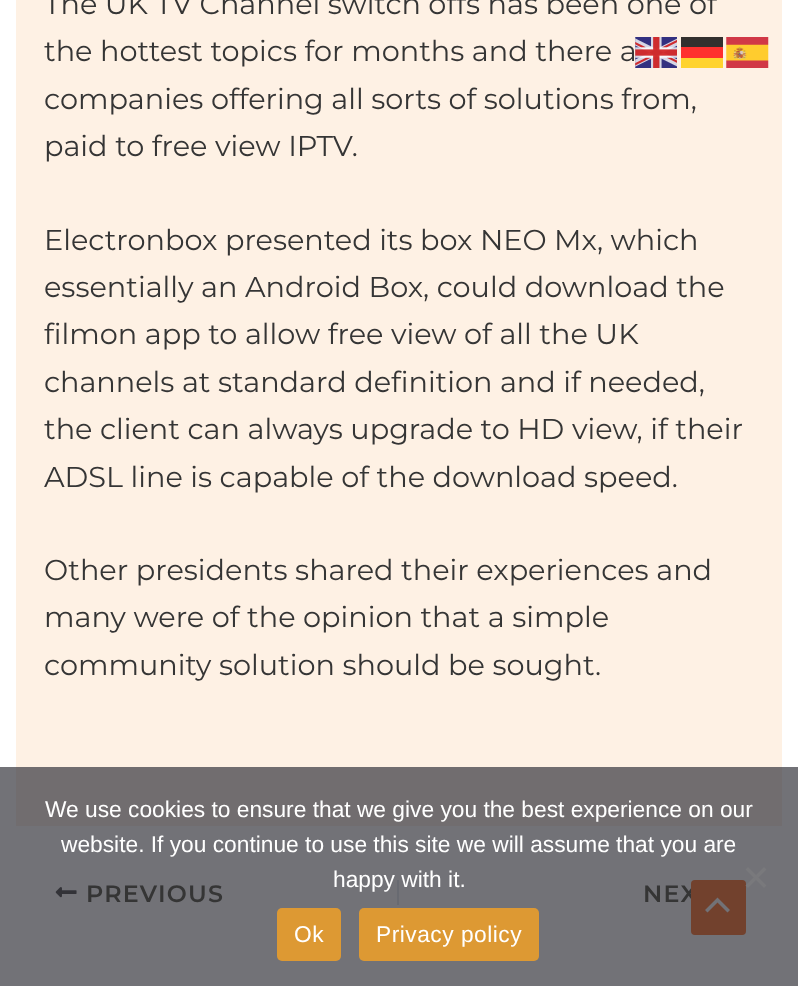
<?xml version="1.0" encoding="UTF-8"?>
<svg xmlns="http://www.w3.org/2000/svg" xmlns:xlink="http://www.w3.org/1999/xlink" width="798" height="986">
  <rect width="100%" height="100%" fill="#ffffff" />
  <rect y="767" width="798" height="219" fill="#727277" />
  <rect x="16" width="766" height="767" fill="#fef1e4" />
  <rect x="16" y="767" width="766" height="59" fill="#716d6f" />
  <image x="55" y="887" width="22" height="11" xlink:href="image1.png" />
  <rect x="397" y="880" width="2" height="25" fill="#686a71" />
  <image x="635" y="37" width="42" height="31" xlink:href="image2.png" />
  <rect x="681" y="37" width="42" height="10" fill="#33302e" />
  <image x="726" y="37" width="43" height="31" xlink:href="image3.png" />
  <rect x="681" y="47" width="42" height="11" fill="#ff302e" />
  <rect x="681" y="58" width="42" height="10" fill="#ffd32e" />
  <rect x="277" y="908" width="64" height="53" rx="5" fill="#dd9933" />
  <rect x="359" y="908" width="180" height="53" rx="5" fill="#dd9933" />
  <text x="44" y="14" style="font-family: Montserrat; font-size: 28.75px; fill: #353535">The UK TV Channel switch offs has been one of</text>
  <text x="44" y="61" style="font-family: Montserrat; font-size: 28.75px; fill: #353535">the hottest topics for months and there a</text>
  <text x="44" y="109" style="font-family: Montserrat; font-size: 28.75px; fill: #353535">companies offering all sorts of solutions from,</text>
  <text x="44" y="156" style="font-family: Montserrat; font-size: 28.75px; fill: #353535">paid to free view IPTV.</text>
  <text x="44" y="250" style="font-family: Montserrat; font-size: 28.75px; fill: #353535">Electronbox presented its box NEO Mx, which</text>
  <text x="44" y="297" style="font-family: Montserrat; font-size: 28.75px; fill: #353535">essentially an Android Box, could download the</text>
  <text x="44" y="344" style="font-family: Montserrat; font-size: 28.75px; fill: #353535">filmon app to allow free view of all the UK</text>
  <text x="44" y="392" style="font-family: Montserrat; font-size: 28.75px; fill: #353535">channels at standard definition and if needed,</text>
  <text x="44" y="439" style="font-family: Montserrat; font-size: 28.75px; fill: #353535">the client can always upgrade to HD view, if their</text>
  <text x="44" y="487" style="font-family: Montserrat; font-size: 28.75px; fill: #353535">ADSL line is capable of the download speed.</text>
  <text x="44" y="580" style="font-family: Montserrat; font-size: 28.75px; fill: #353535">Other presidents shared their experiences and</text>
  <text x="44" y="627" style="font-family: Montserrat; font-size: 28.75px; fill: #353535">many were of the opinion that a simple</text>
  <text x="44" y="675" style="font-family: Montserrat; font-size: 28.75px; fill: #353535">community solution should be sought.</text>
  <text x="86" y="902" style="font-family: Montserrat; font-size: 23.75px; font-weight: 600; letter-spacing: 1.25px; fill: #353535">PREVIOUS</text>
  <text x="643" y="902" style="font-family: Montserrat; font-size: 23.75px; font-weight: 600; letter-spacing: 1.25px; fill: #353535">NEX</text>
  <text x="45" y="817" style="font-family: Liberation Sans; font-size: 22.75px; fill: #ffffff">We use cookies to ensure that we give you the best experience on our</text>
  <text x="61" y="852" style="font-family: Liberation Sans; font-size: 22.75px; fill: #ffffff">website. If you continue to use this site we will assume that you are</text>
  <text x="333" y="887" style="font-family: Liberation Sans; font-size: 22.75px; fill: #ffffff">happy with it.</text>
  <text x="294" y="942" style="font-family: Liberation Sans; font-size: 22.75px; letter-spacing: 0.5px; fill: #ffffff">Ok</text>
  <text x="376" y="942" style="font-family: Liberation Sans; font-size: 22.75px; letter-spacing: 0.5px; fill: #ffffff">Privacy policy</text>
  <rect x="691" y="880" width="55" height="55" rx="4" fill="#72412d" />
  <path d="M 764 867 l 2.5 2.5 l -18.5 18.5 l -2.5 -2.5 z" fill="#79797c" />
  <path d="M 745.5 869.5 l 2.5 -2.5 l 18.5 18.5 l -2.5 2.5 z" fill="#79797c" />
  <path d="M 730 910 l -12.5 -12.5 l -12.5 12.5 l 2.5 2.5 l 10 -10 l 10 10 z" fill="#727277" />
</svg>
